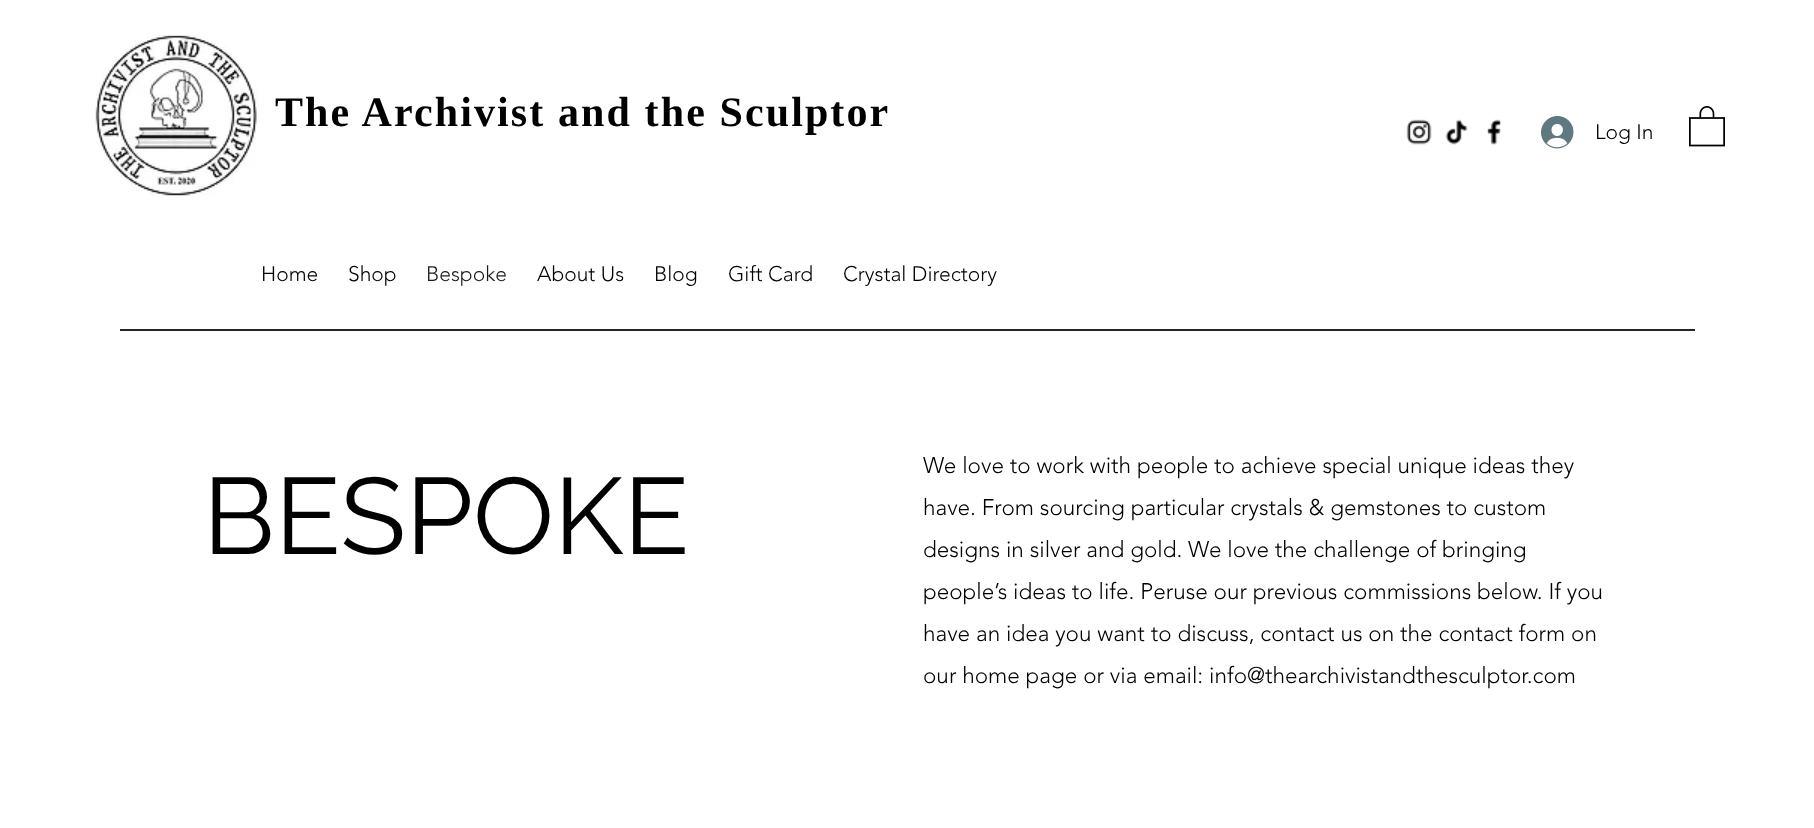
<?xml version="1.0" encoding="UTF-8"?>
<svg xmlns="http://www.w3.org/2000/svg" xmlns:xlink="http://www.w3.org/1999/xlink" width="1814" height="828">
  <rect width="100%" height="100%" fill="#ffffff" />
  <image x="95" y="34" width="163" height="162" xlink:href="image1.png" />
  <image x="1406" y="119" width="26" height="26" xlink:href="image2.png" />
  <image x="1445" y="119" width="23" height="26" xlink:href="image3.png" />
  <image x="1487" y="119" width="14" height="26" xlink:href="image4.png" />
  <image x="1541" y="116" width="33" height="33" xlink:href="image5.png" />
  <image x="1689" y="106" width="36" height="41" xlink:href="image6.png" />
  <rect x="120" y="329" width="1575" height="2" fill="#262626" />
  <text x="275" y="126" style="font-family: Liberation Serif; font-size: 42px; font-weight: bold; letter-spacing: 2.1px; fill: #000000">The Archivist and the Sculptor</text>
  <text x="1595" y="139" style="font-family: 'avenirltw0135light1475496'; font-size: 21px; font-weight: 300; fill: #000000">Log In</text>
  <text x="261" y="281" style="font-family: 'avenirltw0135light1475496'; font-size: 21px; font-weight: 300; fill: #000000">Home</text>
  <text x="348" y="281" style="font-family: 'avenirltw0135light1475496'; font-size: 21px; font-weight: 300; fill: #000000">Shop</text>
  <text x="426" y="281" style="font-family: 'avenirltw0135light1475496'; font-size: 21px; font-weight: 300; fill: #191919">Bespoke</text>
  <text x="537" y="281" style="font-family: 'avenirltw0135light1475496'; font-size: 21px; font-weight: 300; fill: #000000">About Us</text>
  <text x="654" y="281" style="font-family: 'avenirltw0135light1475496'; font-size: 21px; font-weight: 300; fill: #000000">Blog</text>
  <text x="728" y="281" style="font-family: 'avenirltw0135light1475496'; font-size: 21px; font-weight: 300; fill: #000000">Gift Card</text>
  <text x="843" y="281" style="font-family: 'avenirltw0135light1475496'; font-size: 21px; font-weight: 300; fill: #000000">Crystal Directory</text>
  <text x="203" y="554" style="font-family: Raleway; font-size: 108px; fill: #000000">BESPOKE</text>
  <text x="923" y="473" style="font-family: 'avenirltw0135light1475496'; font-size: 22.5px; font-weight: 300; fill: #000000">We love to work with people to achieve special unique ideas they</text>
  <text x="923" y="515" style="font-family: 'avenirltw0135light1475496'; font-size: 22.5px; font-weight: 300; fill: #000000">have. From sourcing particular crystals &amp; gemstones to custom</text>
  <text x="923" y="557" style="font-family: 'avenirltw0135light1475496'; font-size: 22.5px; font-weight: 300; fill: #000000">designs in silver and gold. We love the challenge of bringing</text>
  <text x="923" y="599" style="font-family: 'avenirltw0135light1475496'; font-size: 22.5px; font-weight: 300; fill: #000000">people’s ideas to life. Peruse our previous commissions below. If you</text>
  <text x="923" y="641" style="font-family: 'avenirltw0135light1475496'; font-size: 22.5px; font-weight: 300; fill: #000000">have an idea you want to discuss, contact us on the contact form on</text>
  <text x="923" y="683" style="font-family: 'avenirltw0135light1475496'; font-size: 22.5px; font-weight: 300; fill: #000000">our home page or via email: info@thearchivistandthesculptor.com</text>
</svg>
